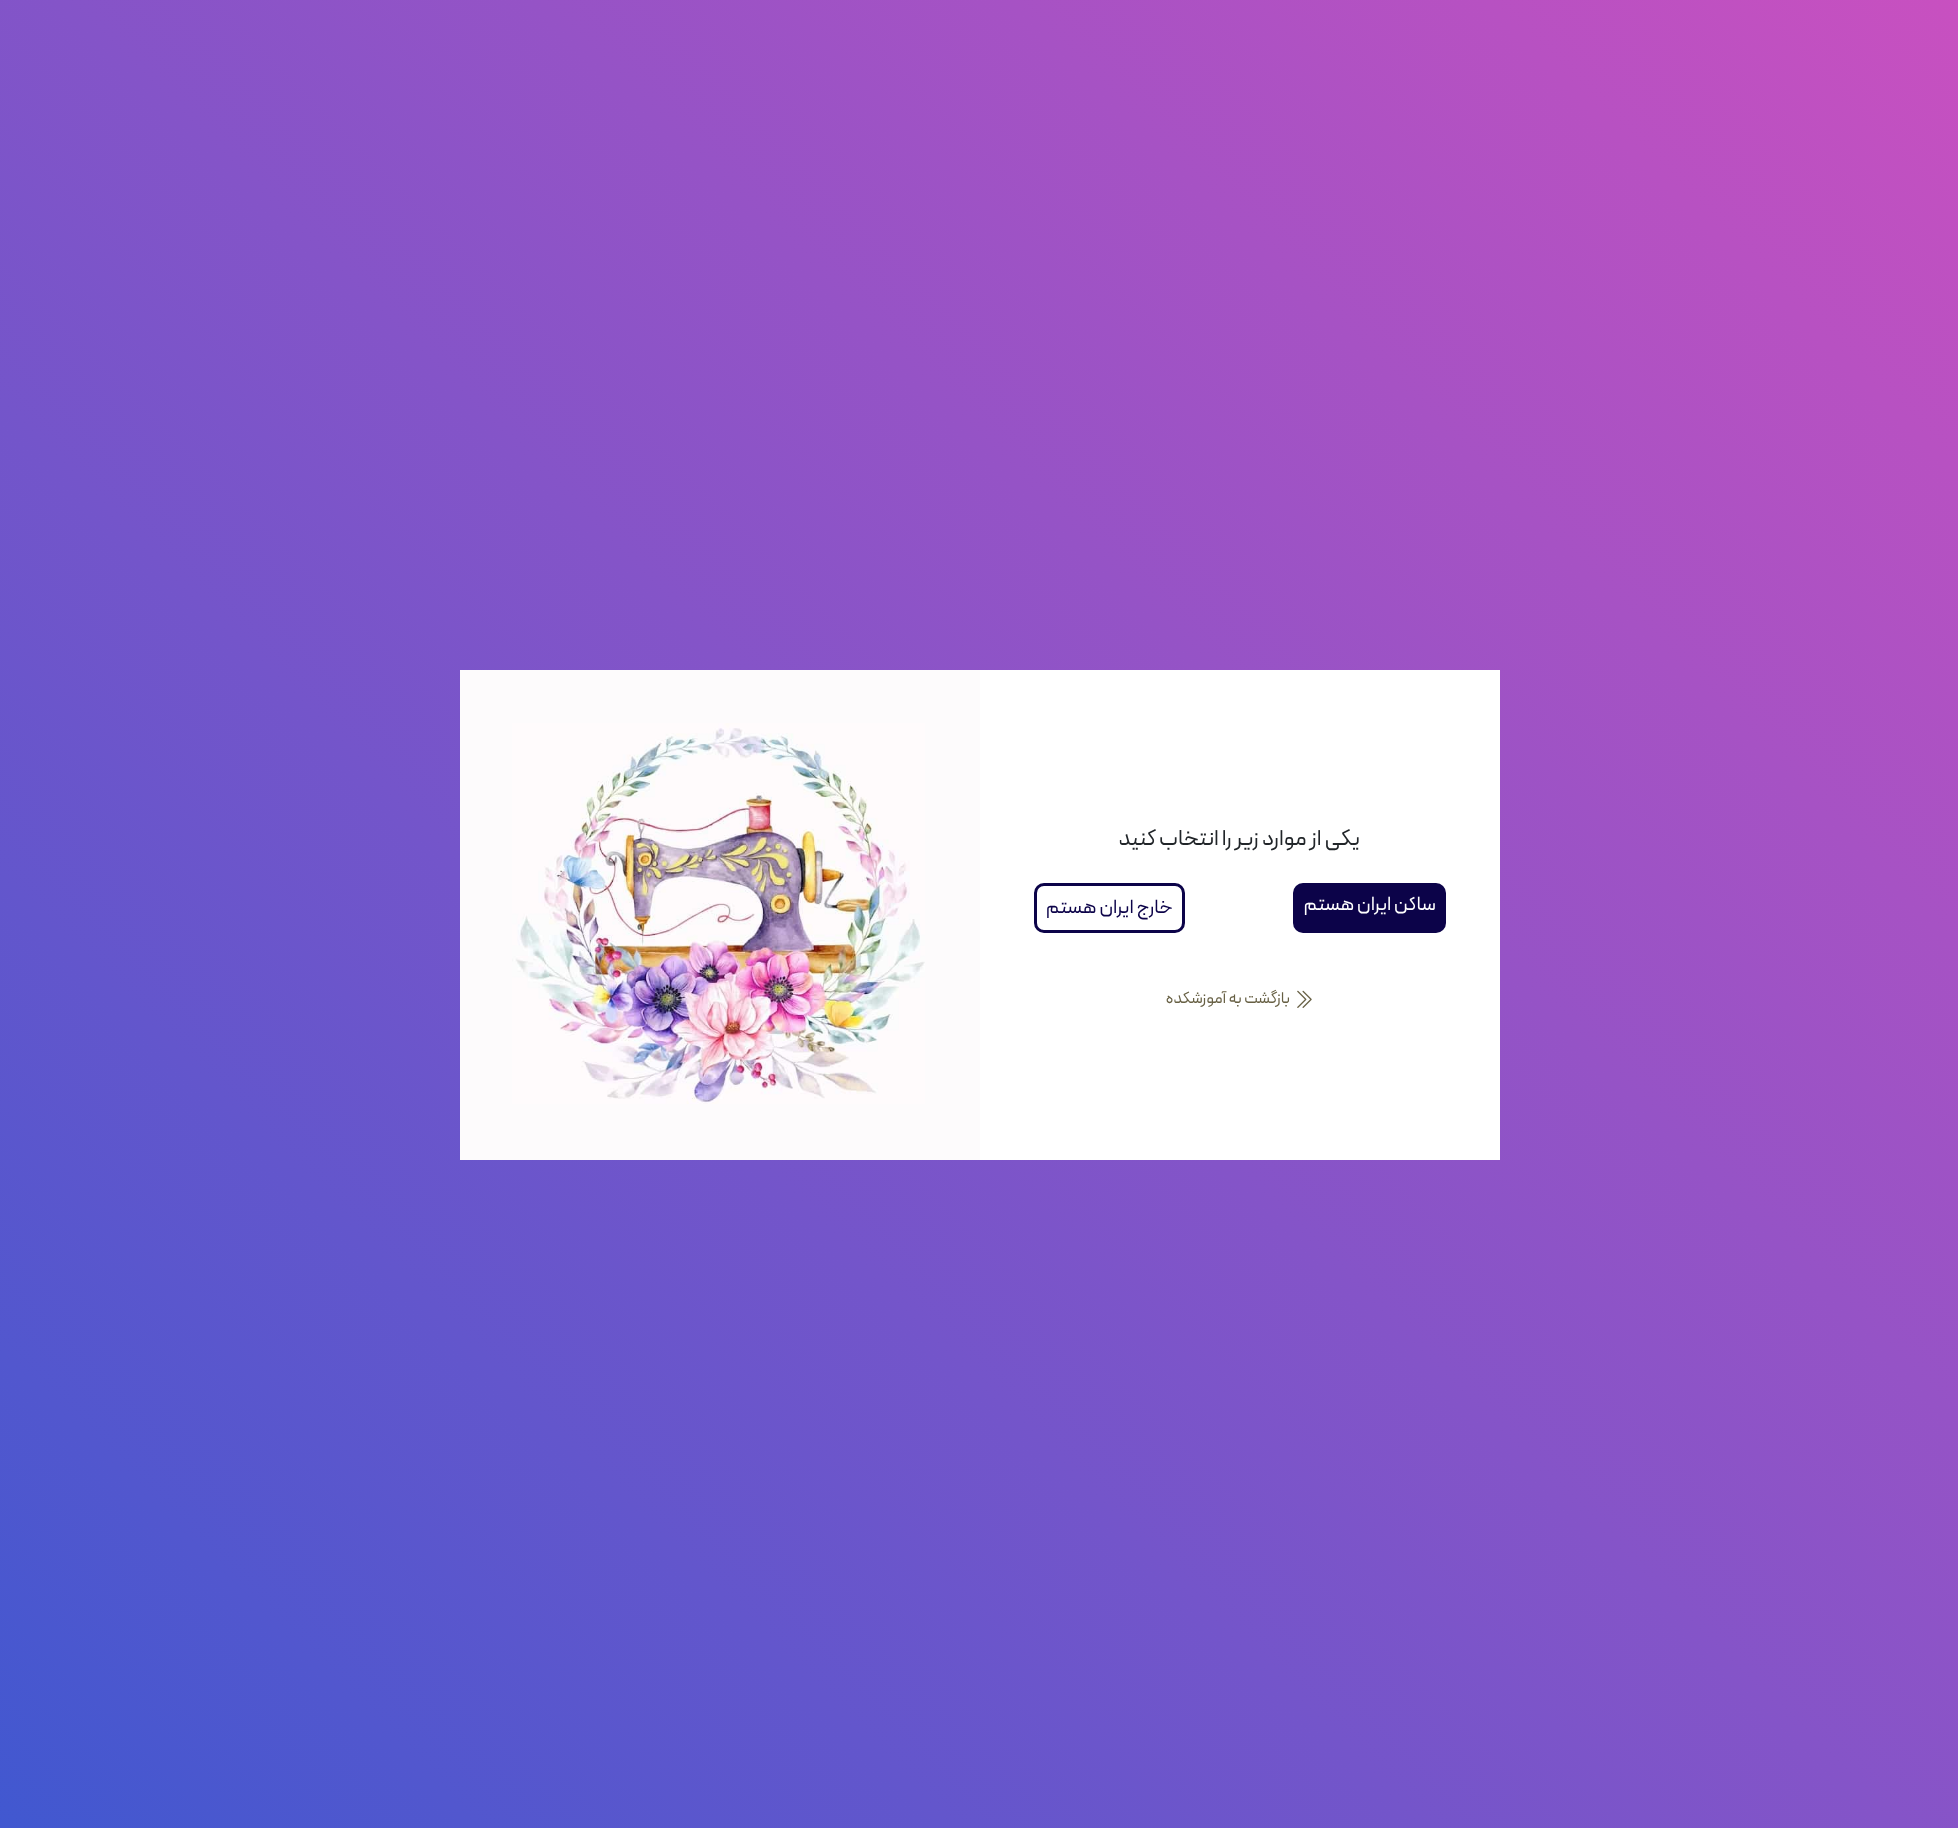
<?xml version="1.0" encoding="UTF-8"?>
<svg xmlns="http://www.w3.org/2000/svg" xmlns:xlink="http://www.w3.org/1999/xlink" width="1958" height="1828">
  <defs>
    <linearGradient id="g1" gradientUnits="userSpaceOnUse" x1="1926" y1="-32" x2="33" y2="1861"><stop offset="0" stop-color="#c850c0" /><stop offset="1" stop-color="#4158d0" /></linearGradient>
  </defs>
  <rect width="100%" height="100%" fill="#ffffff" />
  <rect width="1958" height="1828" fill="url(#g1)" />
  <rect x="980" y="670" width="520" height="490" fill="#ffffff" />
  <rect x="1293" y="883" width="153" height="50" rx="10" fill="#0c0349" />
  <rect x="1035.5" y="884.5" width="148" height="47" rx="8.5" fill="none" stroke="#0c0349" stroke-width="3" />
  <image x="1297" y="990" width="15" height="18" xlink:href="image1.png" />
  <rect x="460" y="670" width="520" height="490" fill="#fdfbfc" />
  <image x="512" y="723" width="413" height="381" xlink:href="image2.png" />
  <text x="1360" y="845" style="font-family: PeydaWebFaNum; font-size: 22.5px; direction: rtl; fill: #212529">یکی از موارد زیر را انتخاب کنید</text>
  <text x="1436" y="910" style="font-family: PeydaWebFaNum; font-size: 20px; direction: rtl; fill: #ffffff">ساکن ایران هستم</text>
  <text x="1173" y="913" style="font-family: PeydaWebFaNum; font-size: 20px; direction: rtl; fill: #0c0349">خارج ایران هستم</text>
  <text x="1290" y="1003" style="font-family: PeydaWebFaNum; font-size: 16.25px; direction: rtl; fill: #676044">بازگشت به آموزشکده</text>
</svg>
